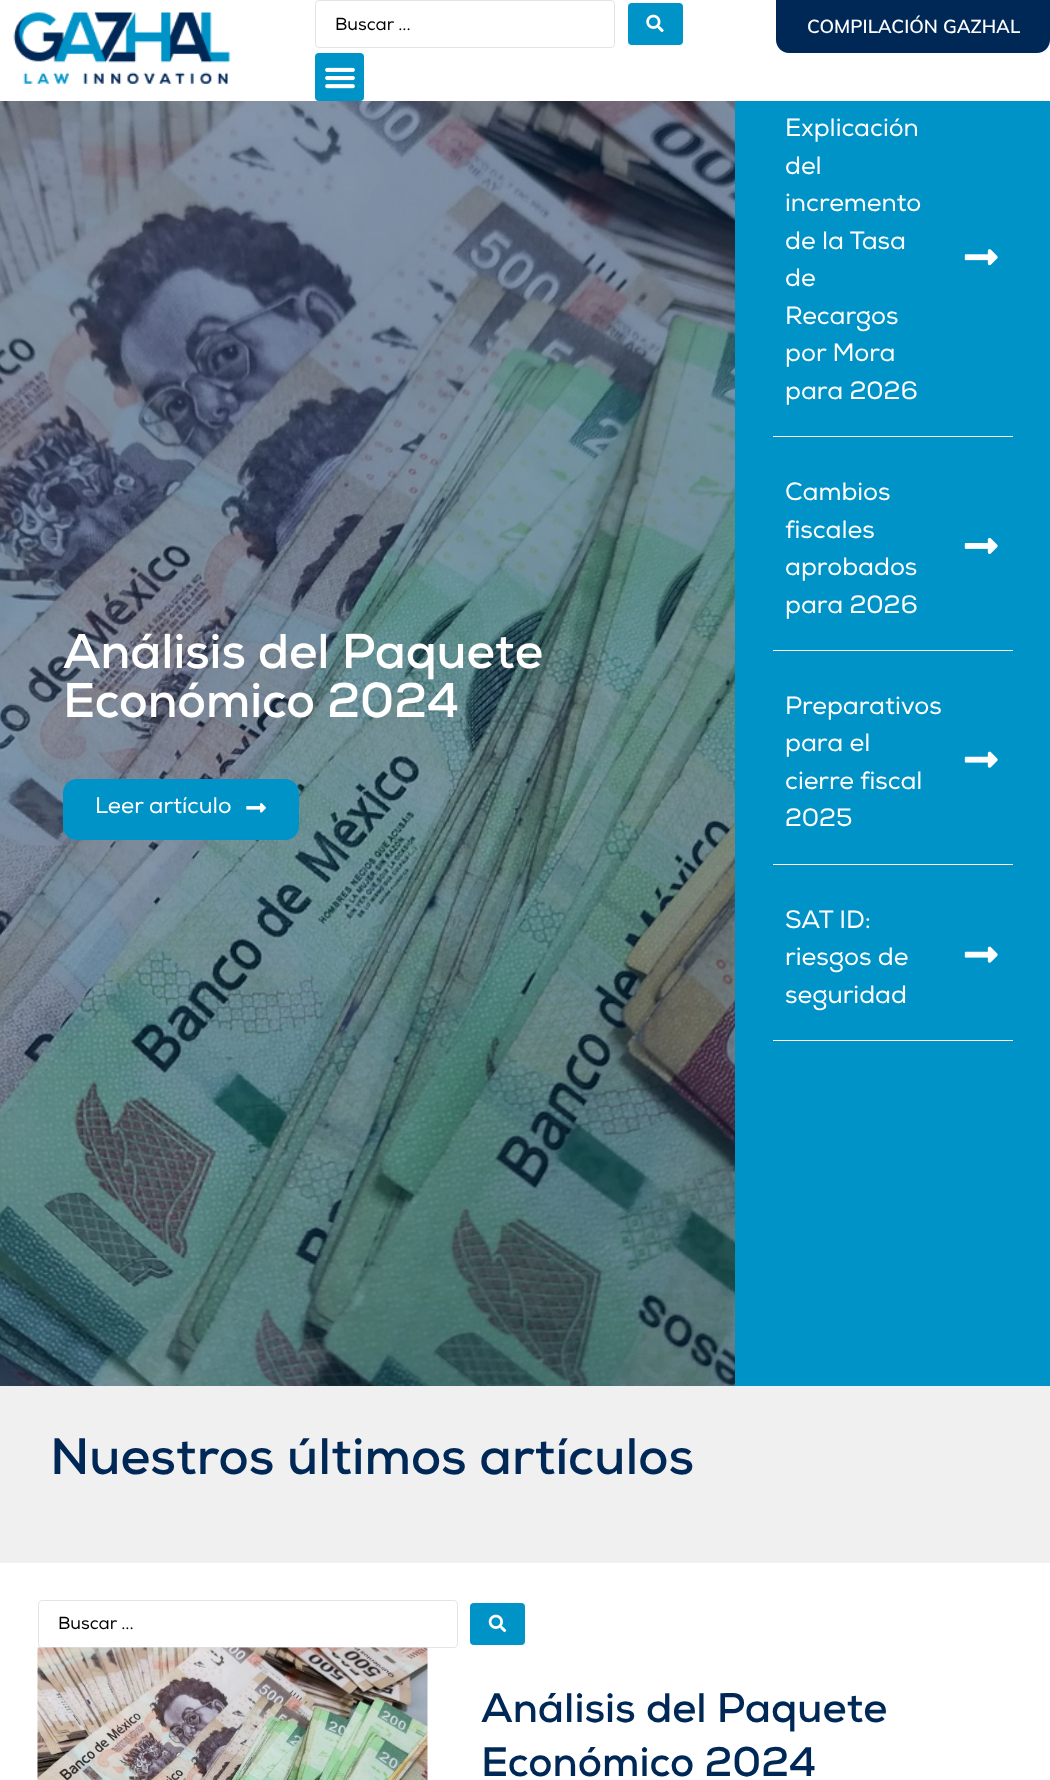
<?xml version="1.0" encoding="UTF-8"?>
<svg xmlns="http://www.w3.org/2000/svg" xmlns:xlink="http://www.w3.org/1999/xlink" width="1050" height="1780">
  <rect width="100%" height="100%" fill="#ffffff" />
  <image x="13" y="12" width="218" height="72" xlink:href="image1.png" />
  <rect x="315.5" y="0.5" width="299" height="47" rx="3.5" fill="none" stroke="#e1e5eb" />
  <rect x="628" y="3" width="55" height="42" rx="4" fill="#0093c8" />
  <image x="646" y="14" width="18" height="19" xlink:href="image2.png" />
  <path d="M 776 0 h 274 v 40 c 0 7 -6 13 -13 13 h -248 c -7 0 -13 -6 -13 -13 z" fill="#002857" />
  <rect x="315" y="53" width="49" height="48" rx="4" fill="#0093c8" />
  <image x="325" y="67" width="30" height="22" xlink:href="image3.png" />
  <image x="0" y="101" width="735" height="1285" xlink:href="image4.png" />
  <rect x="64.5" y="780.5" width="233" height="58" rx="12.5" fill="#0093c8" stroke="#0093c8" stroke-width="3" />
  <image x="246" y="803" width="20" height="10" xlink:href="image5.png" />
  <rect x="735" y="101" width="315" height="1285" fill="#0093c8" />
  <rect x="773" y="436" width="240" height="1" fill="#ffffff" />
  <image x="964" y="249" width="34" height="17" xlink:href="image6.png" />
  <rect x="773" y="650" width="240" height="1" fill="#ffffff" />
  <image x="964" y="537" width="34" height="17" xlink:href="image7.png" />
  <rect x="773" y="864" width="240" height="1" fill="#ffffff" />
  <image x="964" y="751" width="34" height="17" xlink:href="image8.png" />
  <rect x="773" y="1040" width="240" height="1" fill="#ffffff" />
  <image x="964" y="946" width="34" height="17" xlink:href="image8.png" />
  <rect y="1386" width="1050" height="177" fill="#f0f0f0" />
  <rect x="38.5" y="1600.5" width="419" height="47" rx="3.5" fill="none" stroke="#e1e5eb" />
  <rect x="470" y="1603" width="55" height="42" rx="4" fill="#0093c8" />
  <image x="488" y="1614" width="19" height="19" xlink:href="image9.png" />
  <image x="37" y="1647" width="391" height="133" xlink:href="image10.png" />
  <text x="335" y="30" style="font-family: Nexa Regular; font-size: 17.5px; fill: #000000">Buscar ...</text>
  <text x="807" y="33" style="font-family: Mulish; font-size: 18.75px; font-weight: 600; fill: #ffffff">COMPILACIÓN GAZHAL</text>
  <text x="63" y="668" style="font-family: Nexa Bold; font-size: 48.75px; font-weight: bold; fill: #ffffff">Análisis del Paquete</text>
  <text x="63" y="717" style="font-family: Nexa Bold; font-size: 48.75px; font-weight: bold; fill: #ffffff">Económico 2024</text>
  <text x="95" y="813" style="font-family: Nexa Regular; font-size: 22.5px; fill: #ffffff">Leer artículo</text>
  <text x="785" y="136" style="font-family: Nexa Regular; font-size: 25px; fill: #ffffff">Explicación</text>
  <text x="785" y="174" style="font-family: Nexa Regular; font-size: 25px; fill: #ffffff">del</text>
  <text x="785" y="211" style="font-family: Nexa Regular; font-size: 25px; fill: #ffffff">incremento</text>
  <text x="785" y="249" style="font-family: Nexa Regular; font-size: 25px; fill: #ffffff">de la Tasa</text>
  <text x="785" y="286" style="font-family: Nexa Regular; font-size: 25px; fill: #ffffff">de</text>
  <text x="785" y="324" style="font-family: Nexa Regular; font-size: 25px; fill: #ffffff">Recargos</text>
  <text x="785" y="361" style="font-family: Nexa Regular; font-size: 25px; fill: #ffffff">por Mora</text>
  <text x="785" y="399" style="font-family: Nexa Regular; font-size: 25px; fill: #ffffff">para 2026</text>
  <text x="785" y="500" style="font-family: Nexa Regular; font-size: 25px; fill: #ffffff">Cambios</text>
  <text x="785" y="538" style="font-family: Nexa Regular; font-size: 25px; fill: #ffffff">fiscales</text>
  <text x="785" y="575" style="font-family: Nexa Regular; font-size: 25px; fill: #ffffff">aprobados</text>
  <text x="785" y="613" style="font-family: Nexa Regular; font-size: 25px; fill: #ffffff">para 2026</text>
  <text x="785" y="714" style="font-family: Nexa Regular; font-size: 25px; fill: #ffffff">Preparativos</text>
  <text x="785" y="751" style="font-family: Nexa Regular; font-size: 25px; fill: #ffffff">para el</text>
  <text x="785" y="789" style="font-family: Nexa Regular; font-size: 25px; fill: #ffffff">cierre fiscal</text>
  <text x="785" y="826" style="font-family: Nexa Regular; font-size: 25px; fill: #ffffff">2025</text>
  <text x="785" y="928" style="font-family: Nexa Regular; font-size: 25px; fill: #ffffff">SAT ID:</text>
  <text x="785" y="965" style="font-family: Nexa Regular; font-size: 25px; fill: #ffffff">riesgos de</text>
  <text x="785" y="1003" style="font-family: Nexa Regular; font-size: 25px; fill: #ffffff">seguridad</text>
  <text x="50" y="1474" style="font-family: Nexa Bold; font-size: 51.25px; font-weight: bold; fill: #002857">Nuestros últimos artículos</text>
  <text x="58" y="1629" style="font-family: Nexa Regular; font-size: 17.5px; fill: #000000">Buscar ...</text>
  <text x="481" y="1722" style="font-family: Nexa Bold; font-size: 41.25px; font-weight: bold; fill: #002857">Análisis del Paquete</text>
  <text x="481" y="1776" style="font-family: Nexa Bold; font-size: 41.25px; font-weight: bold; fill: #002857">Económico 2024</text>
</svg>
